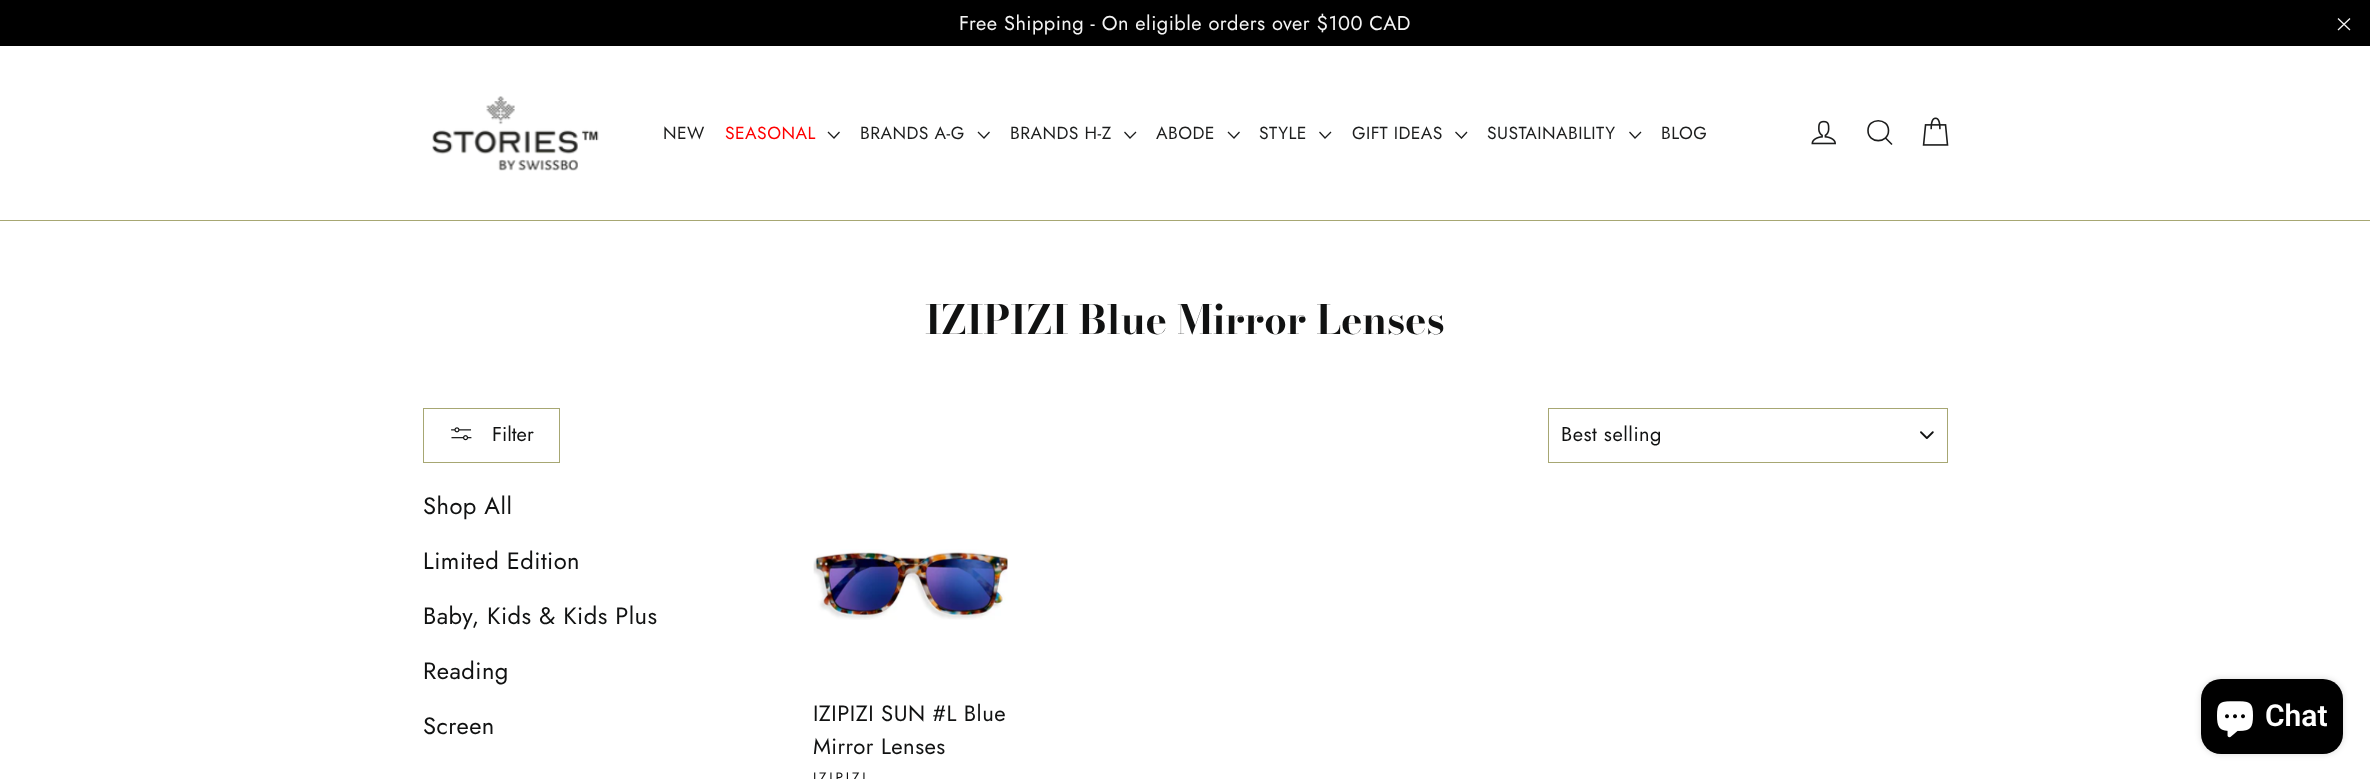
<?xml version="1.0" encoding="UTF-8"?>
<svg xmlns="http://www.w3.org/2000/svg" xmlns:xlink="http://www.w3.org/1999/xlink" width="2370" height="779">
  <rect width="100%" height="100%" fill="#ffffff" />
  <rect width="2370" height="46" fill="#000000" />
  <path d="M 2338 18.5 l 12 11.5 m 0 -11.5 l -12 11.5" fill="none" stroke="#f4f4f4" stroke-width="1.3" />
  <rect y="220" width="2370" height="1" fill="#a7a773" />
  <image x="432" y="96" width="167" height="75" xlink:href="image1.png" />
  <path d="M 828 132 l 6 6 l 5.5 -6" fill="none" stroke="#1c1d1d" stroke-width="1.3" />
  <path d="M 978 132 l 6 6 l 5.5 -6" fill="none" stroke="#1c1d1d" stroke-width="1.3" />
  <path d="M 1124.5 132 l 5.5 6 l 6 -6" fill="none" stroke="#1c1d1d" stroke-width="1.3" />
  <path d="M 1228 132 l 6 6 l 5.5 -6" fill="none" stroke="#1c1d1d" stroke-width="1.3" />
  <path d="M 1319.5 132 l 5.5 6 l 6 -6" fill="none" stroke="#1c1d1d" stroke-width="1.3" />
  <path d="M 1455.5 132 l 6 6 l 5.5 -6" fill="none" stroke="#1c1d1d" stroke-width="1.3" />
  <path d="M 1629.5 132 l 5.5 6 l 6 -6" fill="none" stroke="#1c1d1d" stroke-width="1.3" />
  <image x="1811" y="120" width="25" height="25" xlink:href="image2.png" />
  <path d="M 1888.5 130.5 c 0 13.5 -20.5 13.5 -20.5 0 c 0 -13 20.5 -13 20.5 0 z m 3.5 14 l -6.5 -6.5" fill="none" stroke="#1c1d1d" stroke-width="1.6" />
  <image x="1922" y="117" width="27" height="29" xlink:href="image3.png" />
  <rect x="423.5" y="408.5" width="136" height="54" fill="none" stroke="#a7a773" />
  <image x="451" y="427" width="21" height="14" xlink:href="image4.png" />
  <image x="1920" y="431" width="14" height="8" xlink:href="image5.png" />
  <rect x="1548.5" y="408.5" width="399" height="54" fill="none" stroke="#a7a773" />
  <image x="813" y="549" width="195" height="71" xlink:href="image6.png" />
  <rect x="2201" y="679" width="142" height="75" rx="20" fill="#000000" fill-opacity="0.15" filter="blur(3px)" />
  <rect x="2201" y="679" width="142" height="75" rx="20" fill="#000000" />
  <image x="2217" y="701" width="36" height="37" xlink:href="image7.png" />
  <text x="959" y="30" style="font-family: Jost; font-size: 20px; letter-spacing: 0.45px; fill: #f4f4f4">Free Shipping - On eligible orders over $100 CAD</text>
  <text x="663" y="139" style="font-family: Jost; font-size: 17.5px; letter-spacing: 0.45px; fill: #1c1d1d">NEW</text>
  <text x="725" y="139" style="font-family: Jost; font-size: 17.5px; letter-spacing: 0.45px; fill: #ff0000">SEASONAL</text>
  <text x="860" y="139" style="font-family: Jost; font-size: 17.5px; letter-spacing: 0.45px; fill: #1c1d1d">BRANDS A-G</text>
  <text x="1010" y="139" style="font-family: Jost; font-size: 17.5px; letter-spacing: 0.45px; fill: #1c1d1d">BRANDS H-Z</text>
  <text x="1156" y="139" style="font-family: Jost; font-size: 17.5px; letter-spacing: 0.45px; fill: #1c1d1d">ABODE</text>
  <text x="1259" y="139" style="font-family: Jost; font-size: 17.5px; letter-spacing: 0.45px; fill: #1c1d1d">STYLE</text>
  <text x="1352" y="139" style="font-family: Jost; font-size: 17.5px; letter-spacing: 0.45px; fill: #1c1d1d">GIFT IDEAS</text>
  <text x="1487" y="139" style="font-family: Jost; font-size: 17.5px; letter-spacing: 0.45px; fill: #1c1d1d">SUSTAINABILITY</text>
  <text x="1661" y="139" style="font-family: Jost; font-size: 17.5px; letter-spacing: 0.45px; fill: #1c1d1d">BLOG</text>
  <text x="925" y="334" style="font-family: Bodoni Moda; font-size: 40px; font-weight: bold; fill: #111212">IZIPIZI Blue Mirror Lenses</text>
  <text x="492" y="441" style="font-family: Jost; font-size: 20px; fill: #111212">Filter</text>
  <text x="1561" y="441" style="font-family: Jost; font-size: 20px; letter-spacing: 0.5px; fill: #111212">Best selling</text>
  <text x="423" y="514" style="font-family: Jost; font-size: 23.75px; letter-spacing: 0.45px; fill: #111212">Shop All</text>
  <text x="423" y="569" style="font-family: Jost; font-size: 23.75px; letter-spacing: 0.45px; fill: #111212">Limited Edition</text>
  <text x="423" y="624" style="font-family: Jost; font-size: 23.75px; letter-spacing: 0.45px; fill: #111212">Baby, Kids &amp; Kids Plus</text>
  <text x="423" y="679" style="font-family: Jost; font-size: 23.75px; letter-spacing: 0.45px; fill: #111212">Reading</text>
  <text x="423" y="734" style="font-family: Jost; font-size: 23.75px; letter-spacing: 0.45px; fill: #111212">Screen</text>
  <text x="813" y="721" style="font-family: Jost; font-size: 22.1px; letter-spacing: 0.45px; fill: #111212">IZIPIZI SUN #L Blue</text>
  <text x="813" y="754" style="font-family: Jost; font-size: 22.1px; letter-spacing: 0.45px; fill: #111212">Mirror Lenses</text>
  <text x="813" y="782" style="font-family: Jost; font-size: 13.75px; letter-spacing: 2.75px; fill: #111212">IZIPIZI</text>
  <text x="2265" y="726" style="font-family: Roboto; font-size: 30px; font-weight: 600; fill: #ffffff">Chat</text>
</svg>
